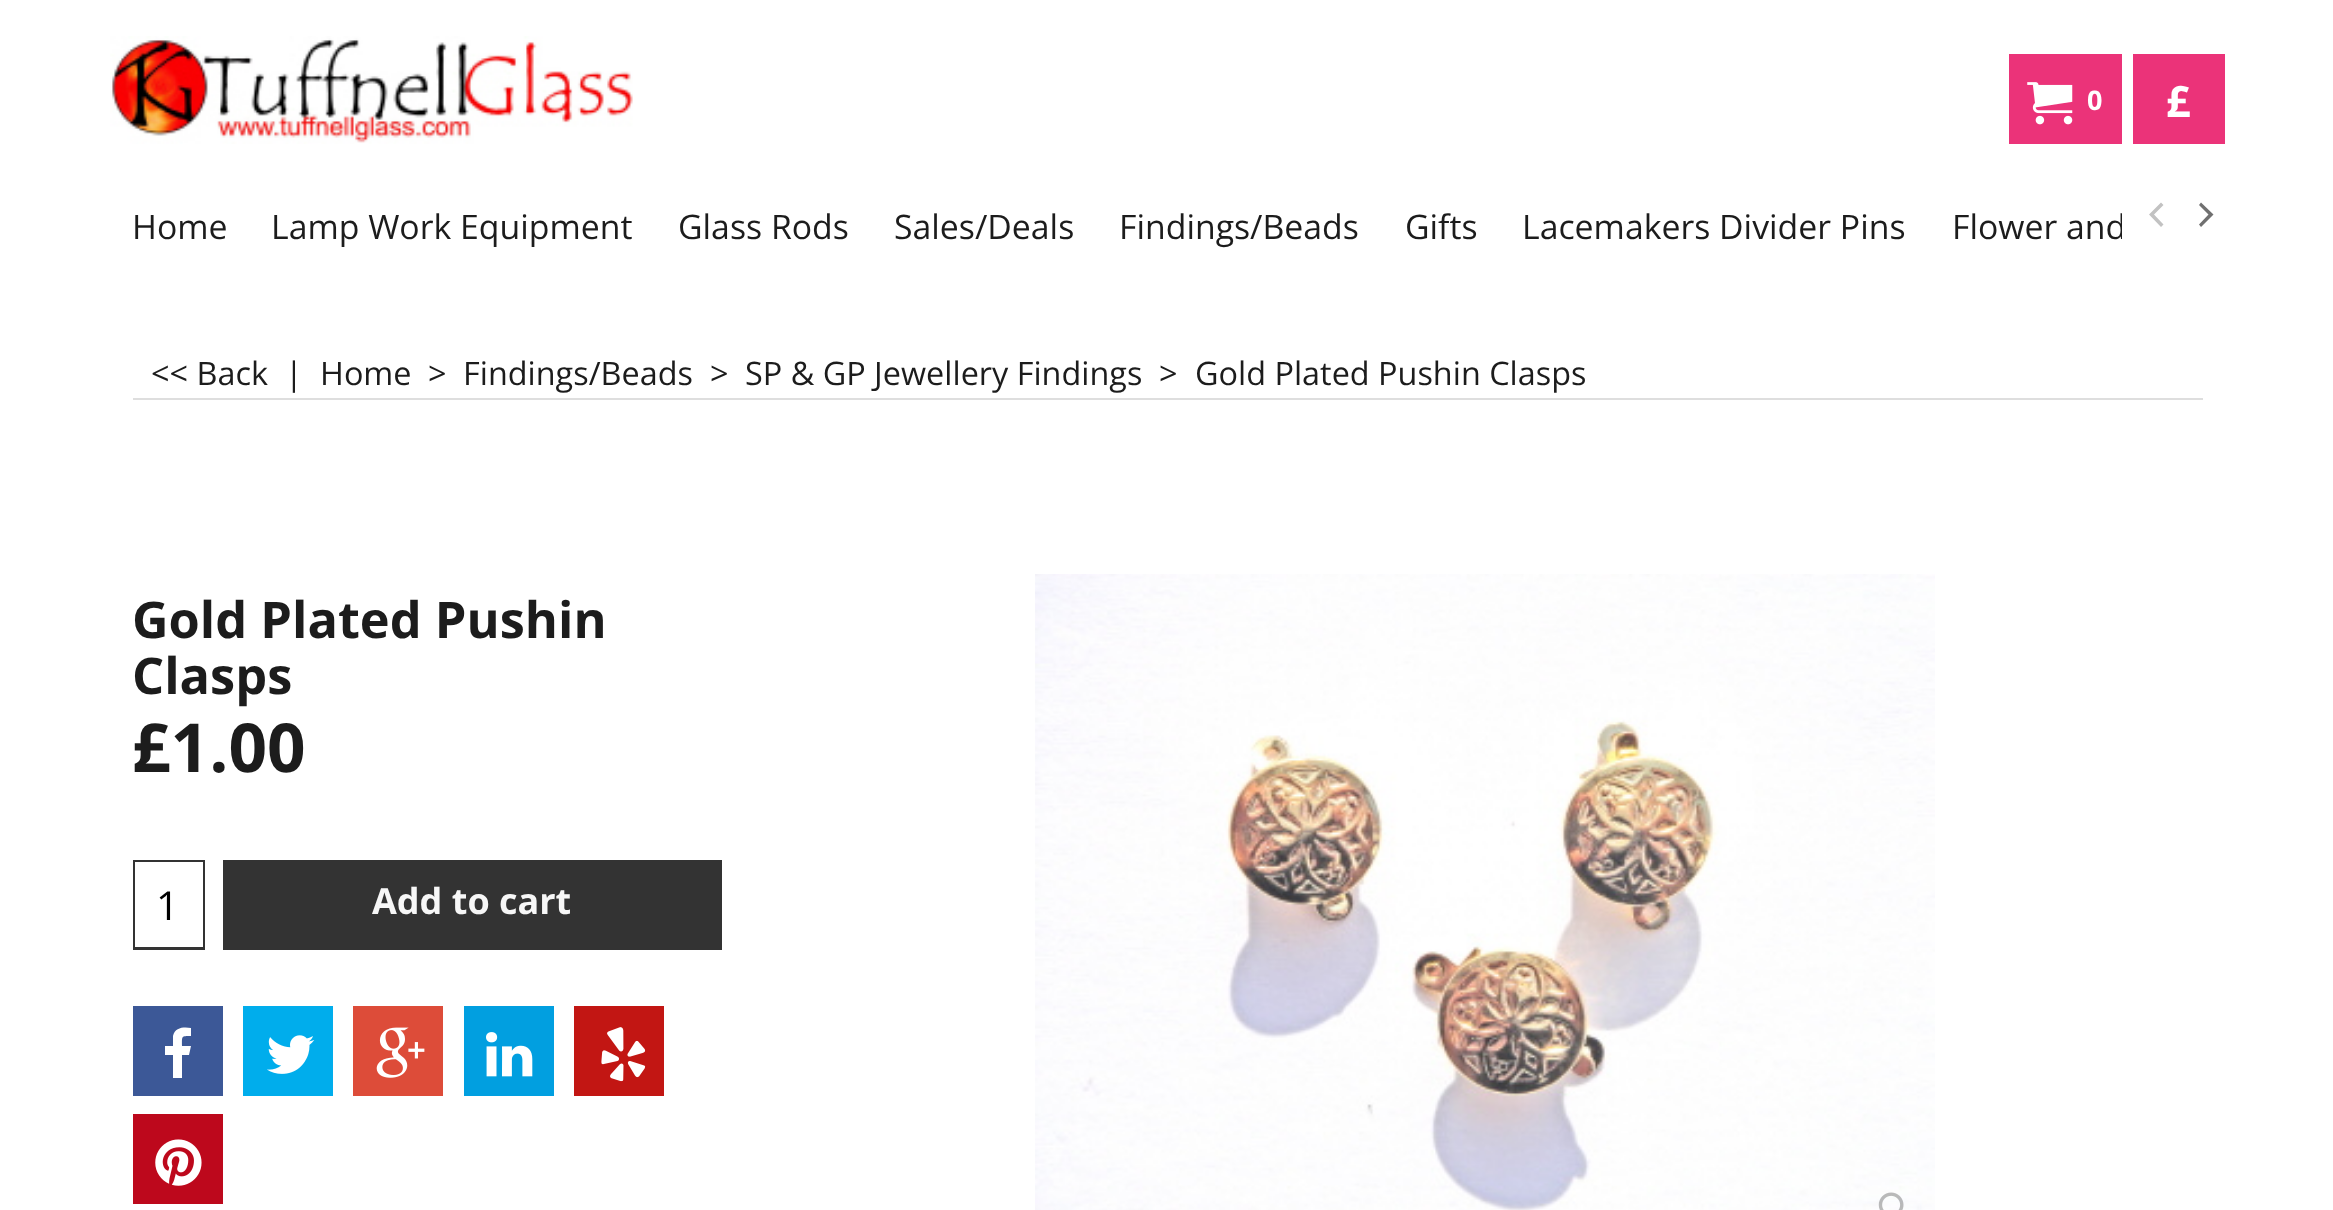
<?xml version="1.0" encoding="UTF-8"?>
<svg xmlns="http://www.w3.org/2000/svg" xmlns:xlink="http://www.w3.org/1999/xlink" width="2333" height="1210">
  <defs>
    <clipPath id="clip1"><rect x="110" y="180" width="2012" height="92" /></clipPath>
  </defs>
  <rect width="100%" height="100%" fill="#ffffff" />
  <image x="110" y="36" width="523" height="108" xlink:href="image1.png" />
  <rect x="2009" y="54" width="113" height="90" fill="#eb3379" />
  <image x="2027" y="82" width="46" height="43" xlink:href="image2.png" />
  <rect x="2133" y="54" width="92" height="90" fill="#eb3379" />
  <path d="M 2149 214.5 l 12 12.5 l 2.5 -2.5 l -9.5 -10 l 9.5 -9.5 l -2.5 -2.5 z" fill="#c2c2c2" />
  <path d="M 2213.5 214.5 l -12.5 -12 l -2 2.5 l 9.5 9.5 l -9.5 10 l 2 2.5 z" fill="#707070" />
  <rect x="133" y="398" width="2070" height="2" fill="#dedede" />
  <rect x="133" y="860" width="72" height="90" fill="#333333" />
  <rect x="135" y="862" width="68" height="85" fill="#ffffff" />
  <rect x="223" y="860" width="499" height="90" fill="#333333" />
  <rect x="133" y="1006" width="90" height="90" fill="#3c5897" />
  <path d="M 191 1028 v 8 c -10 0 -9 0 -9 10 h 9 l -2 9 h -7 v 23 h -9 v -23 h -8 v -9 h 8 v -10 c 2 -9 11 -9 18 -8 z" fill="#ffffff" />
  <rect x="243" y="1006" width="90" height="90" fill="#00adec" />
  <image x="267" y="1035" width="48" height="39" xlink:href="image3.png" />
  <rect x="353" y="1006" width="90" height="90" fill="#dd4c39" />
  <image x="376" y="1027" width="49" height="51" xlink:href="image4.png" />
  <rect x="464" y="1006" width="90" height="90" fill="#019fe0" />
  <image x="486" y="1032" width="47" height="45" xlink:href="image5.png" />
  <rect x="574" y="1006" width="90" height="90" fill="#c21613" />
  <image x="601" y="1027" width="45" height="55" xlink:href="image6.png" />
  <rect x="133" y="1114" width="90" height="90" fill="#bd081c" />
  <image x="155" y="1139" width="47" height="47" xlink:href="image7.png" />
  <image x="1035" y="574" width="900" height="636" xlink:href="image8.png" />
  <rect x="1879" y="1202" width="41" height="8" fill="#ffffff" fill-opacity="0.3" />
  <image x="1878" y="1192" width="26" height="18" xlink:href="image9.png" />
  <text x="2087" y="110" style="font-family: Open Sans; font-size: 27px; font-weight: bold; fill: #ffffff">0</text>
  <text x="2166" y="117" style="font-family: Open Sans; font-size: 43px; font-weight: bold; fill: #ffffff">£</text>
  <text x="132" y="239" style="font-family: Open Sans; font-size: 33.8px; fill: #1c1c1c">Home</text>
  <text x="271" y="239" style="font-family: Open Sans; font-size: 33.8px; fill: #1c1c1c">Lamp Work Equipment</text>
  <text x="678" y="239" style="font-family: Open Sans; font-size: 33.8px; fill: #1c1c1c">Glass Rods</text>
  <text x="894" y="239" style="font-family: Open Sans; font-size: 33.8px; fill: #1c1c1c">Sales/Deals</text>
  <text x="1119" y="239" style="font-family: Open Sans; font-size: 33.8px; fill: #1c1c1c">Findings/Beads</text>
  <text x="1405" y="239" style="font-family: Open Sans; font-size: 33.8px; fill: #1c1c1c">Gifts</text>
  <text x="1522" y="239" style="font-family: Open Sans; font-size: 33.8px; fill: #1c1c1c">Lacemakers Divider Pins</text>
  <g clip-path="url(#clip1)">
    <text x="1952" y="239" style="font-family: Open Sans; font-size: 33.8px; fill: #1c1c1c">Flower and</text>
  </g>
  <text x="151" y="385" style="font-family: Open Sans; font-size: 32.4px; fill: #1c1c1c">&lt;&lt; Back</text>
  <text x="285" y="385" style="font-family: Open Sans; font-size: 32.4px; fill: #1c1c1c">|</text>
  <text x="320" y="385" style="font-family: Open Sans; font-size: 32.4px; fill: #1c1c1c">Home</text>
  <text x="428" y="385" style="font-family: Open Sans; font-size: 32.4px; fill: #1c1c1c">&gt;</text>
  <text x="463" y="385" style="font-family: Open Sans; font-size: 32.4px; fill: #1c1c1c">Findings/Beads</text>
  <text x="710" y="385" style="font-family: Open Sans; font-size: 32.4px; fill: #1c1c1c">&gt;</text>
  <text x="745" y="385" style="font-family: Open Sans; font-size: 32.4px; fill: #1c1c1c">SP &amp; GP Jewellery Findings</text>
  <text x="1159" y="385" style="font-family: Open Sans; font-size: 32.4px; fill: #1c1c1c">&gt;</text>
  <text x="1195" y="385" style="font-family: Open Sans; font-size: 32.4px; fill: #1c1c1c">Gold Plated Pushin Clasps</text>
  <text x="132" y="638" style="font-family: Open Sans; font-size: 50.5px; font-weight: bold; fill: #1c1c1c">Gold Plated Pushin</text>
  <text x="132" y="694" style="font-family: Open Sans; font-size: 50.5px; font-weight: bold; fill: #1c1c1c">Clasps</text>
  <text x="132" y="772" style="font-family: Open Sans; font-size: 67.5px; font-weight: bold; fill: #1c1c1c">£1.00</text>
  <text x="156" y="920" style="font-family: Open Sans; font-size: 40px; fill: #000000">1</text>
  <text x="372" y="914" style="font-family: Open Sans; font-size: 36px; font-weight: bold; fill: #f7f7f7">Add to cart</text>
</svg>
